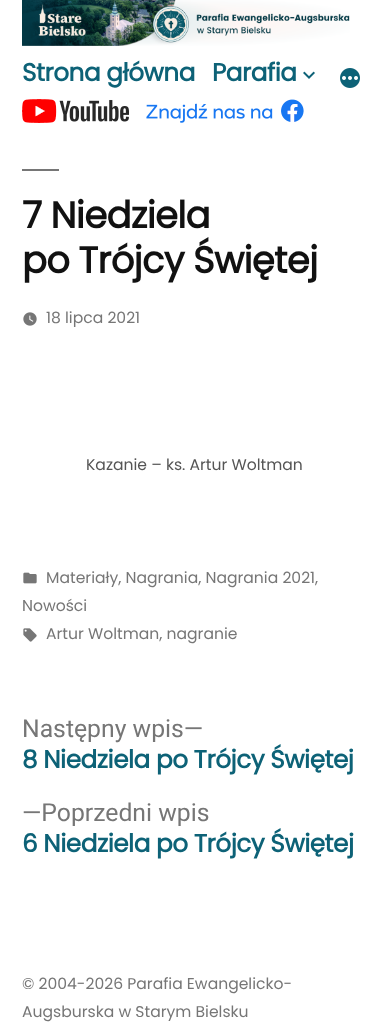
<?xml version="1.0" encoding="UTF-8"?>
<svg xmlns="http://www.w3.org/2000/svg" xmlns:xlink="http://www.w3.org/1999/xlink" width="389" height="1033">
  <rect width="100%" height="100%" fill="#ffffff" />
  <image x="22" y="0" width="328" height="46" xlink:href="image1.png" />
  <image x="303" y="71" width="12" height="8" xlink:href="image2.png" />
  <image x="340" y="68" width="20" height="20" xlink:href="image3.png" />
  <image x="22" y="99" width="107" height="24" xlink:href="image4.png" />
  <image x="146" y="99" width="158" height="24" xlink:href="image5.png" />
  <rect x="22" y="169" width="37" height="2" fill="#767676" />
  <image x="23" y="312" width="14" height="14" xlink:href="image6.png" />
  <image x="23" y="572" width="14" height="12" xlink:href="image7.png" />
  <image x="23" y="628" width="14" height="14" xlink:href="image8.png" />
  <text x="22" y="81" style="font-family: Poppins; font-size: 24.75px; font-weight: bold; letter-spacing: -0.5px; fill: #0d6277">Strona główna</text>
  <text x="212" y="81" style="font-family: Poppins; font-size: 24.75px; font-weight: bold; letter-spacing: -0.5px; fill: #0d6277">Parafia</text>
  <text x="22" y="228" style="font-family: Poppins; font-size: 37px; font-weight: bold; letter-spacing: -0.75px; fill: #111111">7 Niedziela</text>
  <text x="22" y="273" style="font-family: Poppins; font-size: 37px; font-weight: bold; letter-spacing: -0.75px; fill: #111111">po Trójcy Świętej</text>
  <text x="46" y="323" style="font-family: Poppins; font-size: 15.6px; fill: #767676">18 lipca 2021</text>
  <text x="86" y="470" style="font-family: Poppins; font-size: 15.6px; fill: #555555">Kazanie – ks. Artur Woltman</text>
  <text x="46" y="583" style="font-family: Poppins; font-size: 15.6px; fill: #767676">Materiały, Nagrania, Nagrania 2021,</text>
  <text x="22" y="611" style="font-family: Poppins; font-size: 15.6px; fill: #767676">Nowości</text>
  <text x="46" y="639" style="font-family: Poppins; font-size: 15.6px; fill: #767676">Artur Woltman, nagranie</text>
  <text x="22" y="737" style="font-family: Roboto; font-size: 24.75px; fill: #767676">Następny wpis—</text>
  <text x="22" y="768" style="font-family: Poppins; font-size: 24.75px; font-weight: bold; letter-spacing: -0.5px; fill: #0d6277">8 Niedziela po Trójcy Świętej</text>
  <text x="22" y="821" style="font-family: Roboto; font-size: 24.75px; fill: #767676">—Poprzedni wpis</text>
  <text x="22" y="852" style="font-family: Poppins; font-size: 24.75px; font-weight: bold; letter-spacing: -0.5px; fill: #0d6277">6 Niedziela po Trójcy Świętej</text>
  <text x="22" y="989" style="font-family: Poppins; font-size: 15.6px; fill: #767676">© 2004-2026 Parafia Ewangelicko-</text>
  <text x="22" y="1017" style="font-family: Poppins; font-size: 15.6px; fill: #767676">Augsburska w Starym Bielsku</text>
</svg>
